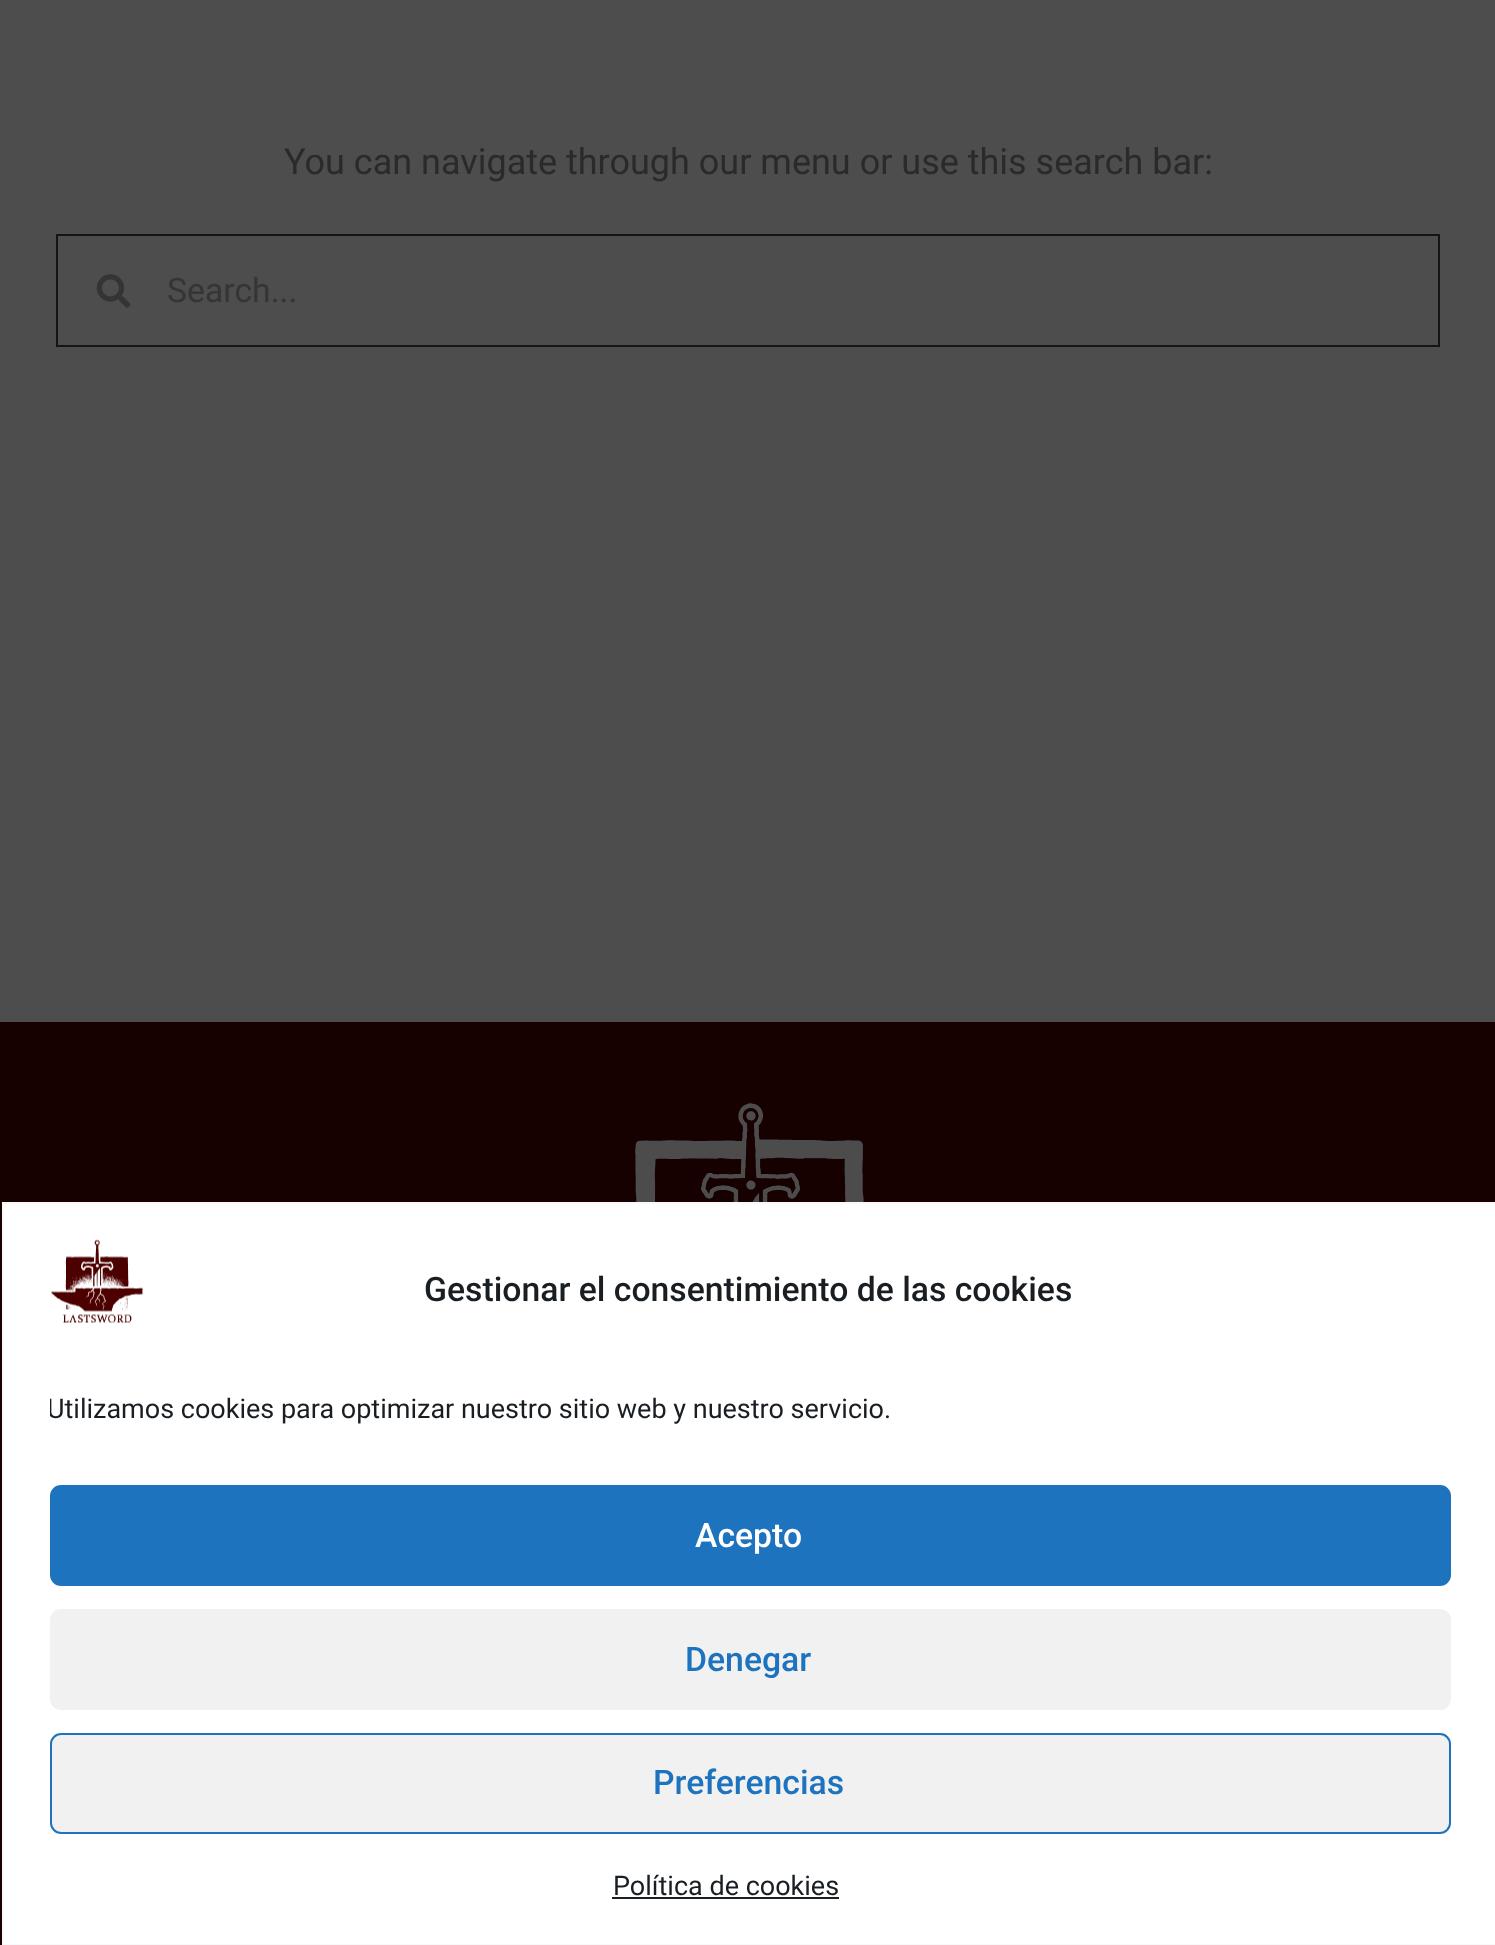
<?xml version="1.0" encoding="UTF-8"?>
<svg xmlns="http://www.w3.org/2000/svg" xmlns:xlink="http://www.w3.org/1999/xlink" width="1495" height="1945">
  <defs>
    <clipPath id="clip1"><rect x="50" y="1388" width="1401" height="52" /></clipPath>
  </defs>
  <rect width="100%" height="100%" fill="#4d4d4d" />
  <rect x="57" y="235" width="1382" height="111" fill="none" stroke="#151515" stroke-width="2" />
  <image x="96" y="274" width="35" height="34" xlink:href="image1.png" />
  <rect y="1022" width="1495" height="923" fill="#170000" />
  <image x="635" y="1103" width="229" height="99" xlink:href="image2.png" />
  <rect x="3" y="1203" width="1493" height="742" fill="#ffffff" stroke="#f9f9f9" stroke-width="2" />
  <image x="51" y="1239" width="92" height="84" xlink:href="image3.png" />
  <rect x="51" y="1486" width="1399" height="99" rx="10" fill="#1e73be" stroke="#1e73be" stroke-width="2" />
  <rect x="51" y="1610" width="1399" height="99" rx="10" fill="#f1f1f1" stroke="#f1f1f1" stroke-width="2" />
  <rect x="51" y="1734" width="1399" height="99" rx="10" fill="#f1f1f1" stroke="#1e73be" stroke-width="2" />
  <rect x="612" y="1897" width="227" height="2" fill="#191e23" />
  <text x="284" y="174" style="font-family: Roboto; font-size: 36px; fill: #2a2a2a">You can navigate through our menu or use this search bar:</text>
  <text x="167" y="302" style="font-family: Roboto; font-size: 33.75px; fill: #353535">Search...</text>
  <text x="424" y="1301" style="font-family: Roboto; font-size: 33.75px; font-weight: 500; fill: #191e23">Gestionar el consentimiento de las cookies</text>
  <g clip-path="url(#clip1)">
    <text x="47" y="1418" style="font-family: Roboto; font-size: 27px; fill: #191e23">Utilizamos cookies para optimizar nuestro sitio web y nuestro servicio.</text>
  </g>
  <text x="695" y="1547" style="font-family: Roboto; font-size: 33.75px; font-weight: 500; fill: #ffffff">Acepto</text>
  <text x="685" y="1671" style="font-family: Roboto; font-size: 33.75px; font-weight: 500; fill: #1e73be">Denegar</text>
  <text x="653" y="1794" style="font-family: Roboto; font-size: 33.75px; font-weight: 500; fill: #1e73be">Preferencias</text>
  <text x="613" y="1895" style="font-family: Roboto; font-size: 27px; fill: #191e23">Política de cookies</text>
</svg>
